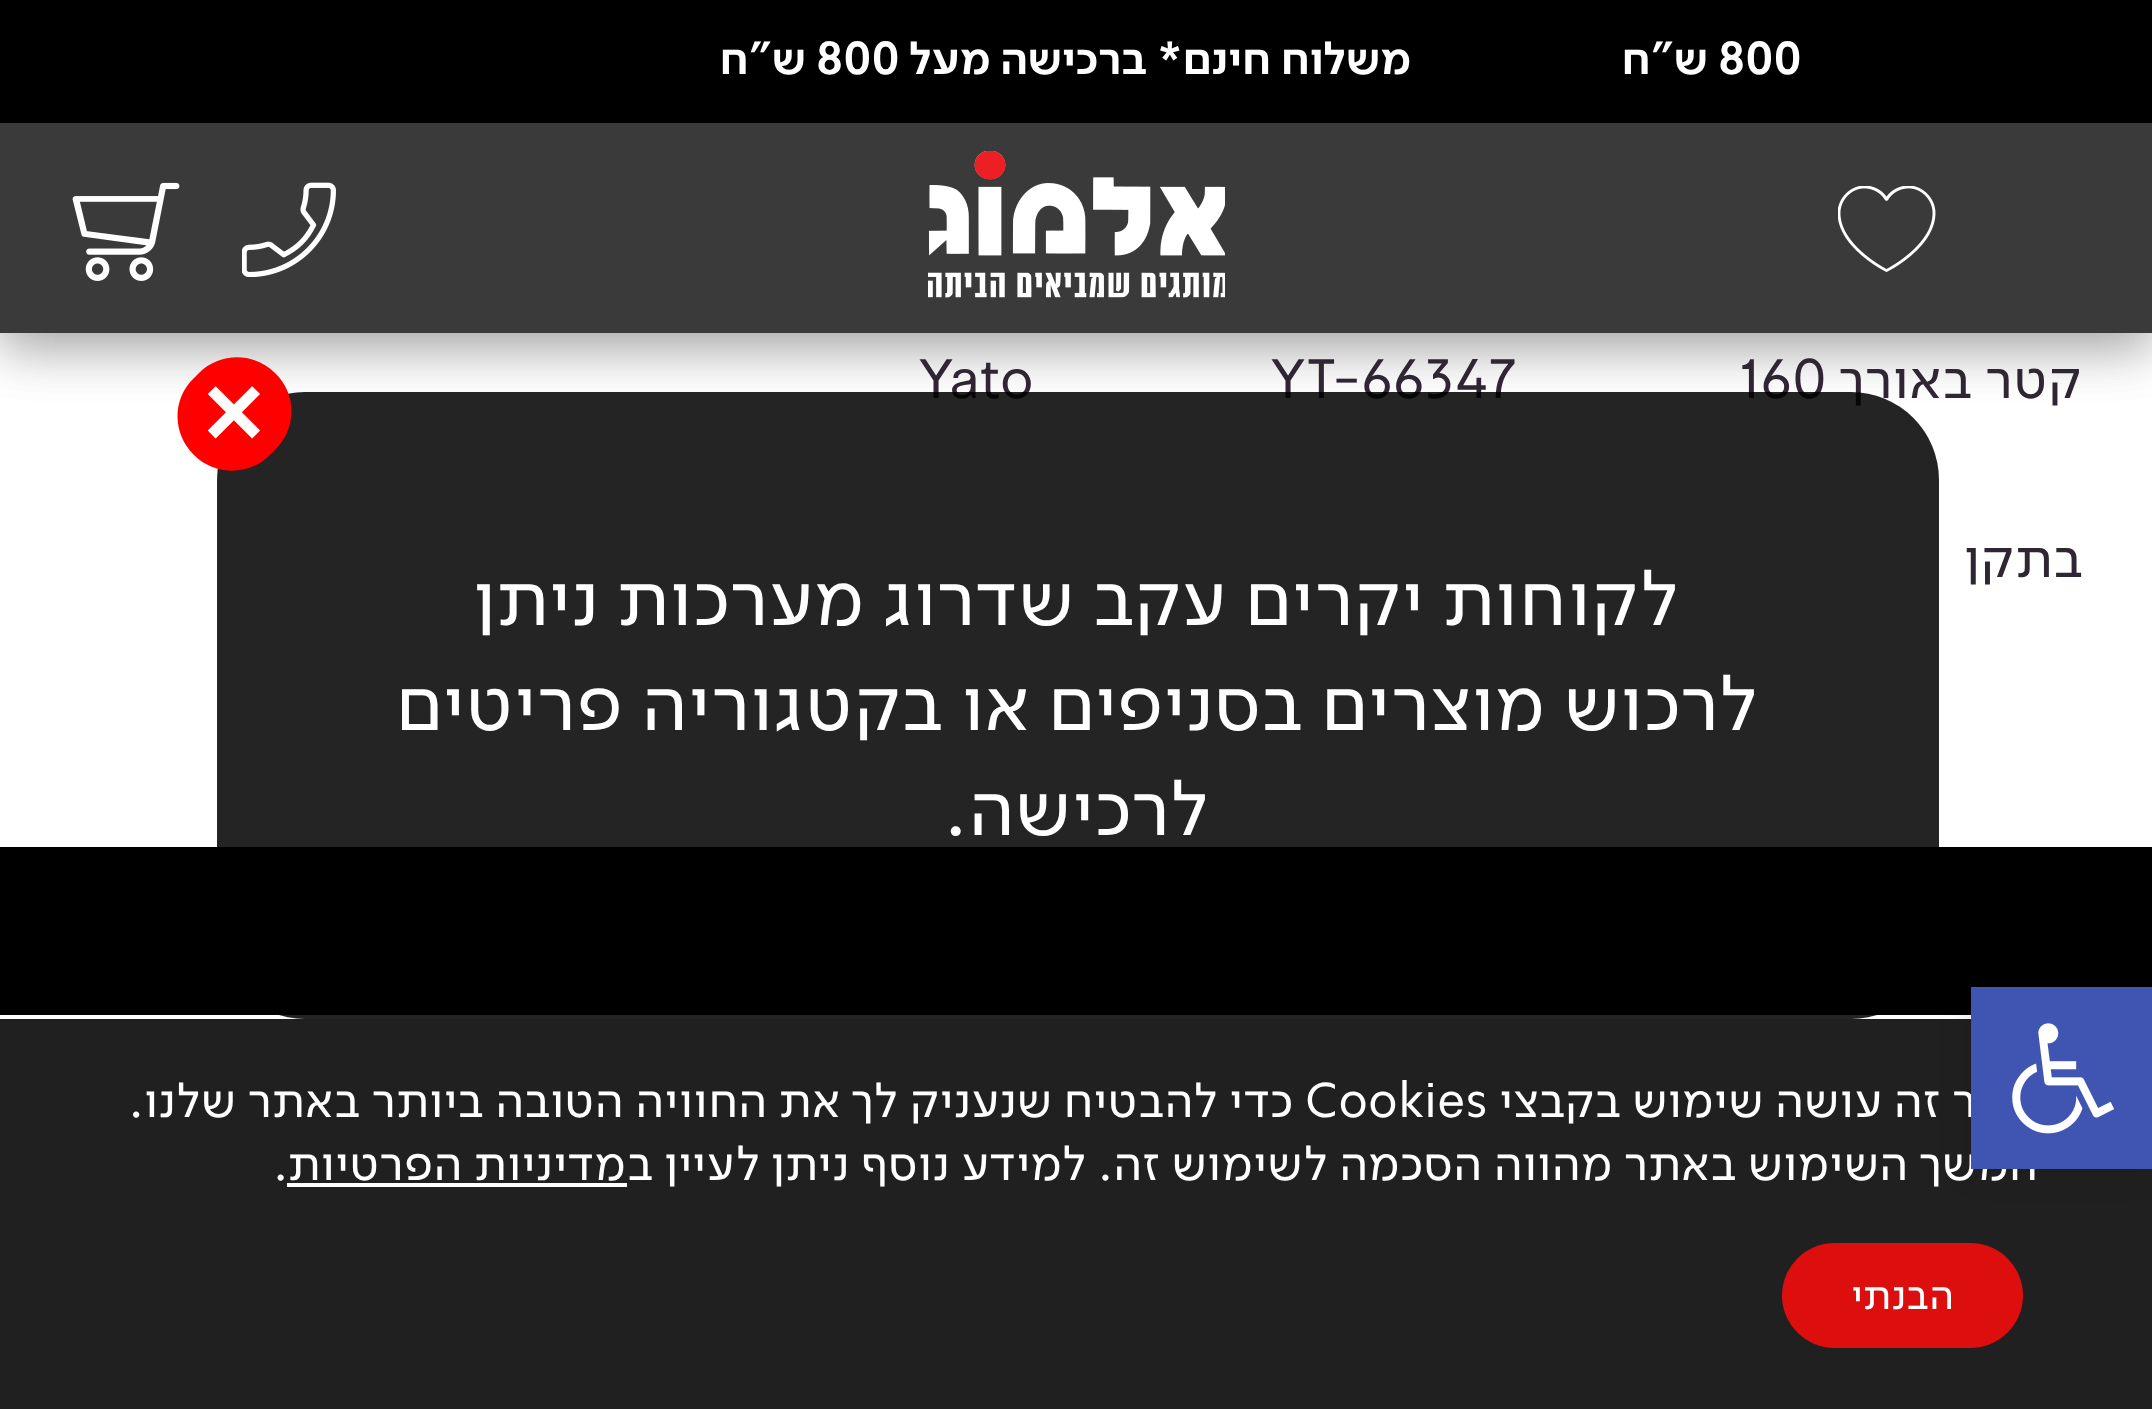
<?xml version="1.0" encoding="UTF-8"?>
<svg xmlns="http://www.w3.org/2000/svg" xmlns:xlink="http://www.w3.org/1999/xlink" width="2152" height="1409">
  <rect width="100%" height="100%" fill="#ffffff" />
  <rect y="14" width="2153" height="333" fill="#000000" fill-opacity="0.2" filter="blur(26px)" />
  <rect width="2152" height="123" fill="#000000" />
  <rect y="137" width="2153" height="210" fill="#000000" fill-opacity="0.2" filter="blur(26px)" />
  <rect y="123" width="2152" height="210" fill="#3a3a3a" />
  <image x="928" y="151" width="297" height="147" xlink:href="image1.png" />
  <image x="1838" y="186" width="98" height="86" xlink:href="image2.png" />
  <image x="242" y="182" width="94" height="95" xlink:href="image3.png" />
  <image x="72" y="182" width="108" height="99" xlink:href="image4.png" />
  <rect y="847" width="2152" height="168" fill="#000000" />
  <rect y="1019" width="2152" height="390" fill="#202020" />
  <rect x="1971" y="987" width="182" height="182" fill="#000000" fill-opacity="0.1" filter="blur(17.5px)" />
  <rect x="287" y="1183" width="340" height="4" fill="#ffffff" />
  <rect x="1782" y="1243" width="241" height="105" rx="52.5" fill="#dc0e0e" />
  <text x="1718" y="74" style="font-family: 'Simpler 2'; font-size: 45.5px; fill: #ffffff">800</text>
  <text x="1708" y="74" style="font-family: 'Simpler 2'; font-size: 45.5px; direction: rtl; fill: #ffffff">ש"ח</text>
  <text x="1411" y="74" style="font-family: 'Simpler 2'; font-size: 45.5px; direction: rtl; fill: #ffffff">משלוח חינם* ברכישה מעל</text>
  <text x="816" y="74" style="font-family: 'Simpler 2'; font-size: 45.5px; fill: #ffffff">800</text>
  <text x="806" y="74" style="font-family: 'Simpler 2'; font-size: 45.5px; direction: rtl; fill: #ffffff">ש"ח</text>
  <text x="2082" y="398" style="font-family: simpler; font-size: 56px; direction: rtl; fill: #2f2533">קטר באורך</text>
  <text x="1739" y="398" style="font-family: simpler; font-size: 56px; fill: #2f2533">160</text>
  <text x="1271" y="398" style="font-family: simpler; font-size: 56px; fill: #2f2533">YT-66347</text>
  <text x="919" y="398" style="font-family: simpler; font-size: 56px; fill: #2f2533">Yato</text>
  <text x="2083" y="577" style="font-family: simpler; font-size: 56px; direction: rtl; fill: #2f2533">בתקן</text>
  <rect x="217" y="392" width="1722" height="627" rx="88" fill="#000000" fill-opacity="0.86" />
  <path d="M 275 373 c 22 21 22 55 0 77 l -5 5 c -21 21 -55 21 -76 0 c -22 -22 -22 -56 0 -77 l 5 -5 c 21 -21 55 -21 76 0 z" fill="#ff0000" />
  <text x="178" y="409" transform="rotate(45 178 409)" style="font-family: 'Simpler 2'; font-size: 105px; fill: #ffffff">+</text>
  <text x="1679" y="625" style="font-family: simpler; font-size: 78.4px; direction: rtl; fill: #ffffff">לקוחות יקרים עקב שדרוג מערכות</text>
  <text x="599" y="625" style="font-family: simpler; font-size: 78.4px; direction: rtl; fill: #ffffff">ניתן</text>
  <text x="1758" y="730" style="font-family: simpler; font-size: 78.4px; direction: rtl; fill: #ffffff">לרכוש מוצרים בסניפים או בקטגוריה פריטים</text>
  <text x="1209" y="835" style="font-family: simpler; font-size: 78.4px; direction: rtl; fill: #ffffff">לרכישה.</text>
  <text x="2038" y="1117" style="font-family: simpler; font-size: 49px; direction: rtl; fill: #ffffff">אתר זה עושה שימוש בקבצי</text>
  <text x="1305" y="1117" style="font-family: simpler; font-size: 49px; fill: #ffffff">Cookies</text>
  <text x="1293" y="1117" style="font-family: simpler; font-size: 49px; direction: rtl; fill: #ffffff">כדי להבטיח שנעניק לך את החוויה הטובה ביותר באתר שלנו.</text>
  <text x="2038" y="1180" style="font-family: simpler; font-size: 49px; direction: rtl; fill: #ffffff">המשך השימוש באתר מהווה הסכמה לשימוש זה. למידע נוסף ניתן לעיין ב</text>
  <rect x="1971" y="987" width="181" height="182" fill="#4054b2" />
  <image x="2012" y="1023" width="102" height="111" xlink:href="image5.png" />
  <text x="626" y="1180" style="font-family: simpler; font-size: 49px; direction: rtl; fill: #ffffff">מדיניות הפרטיות</text>
  <text x="273" y="1180" style="font-family: simpler; font-size: 49px; fill: #ffffff">.</text>
  <text x="1954" y="1309" style="font-family: simpler; font-size: 42px; direction: rtl; fill: #ffffff">הבנתי</text>
</svg>
